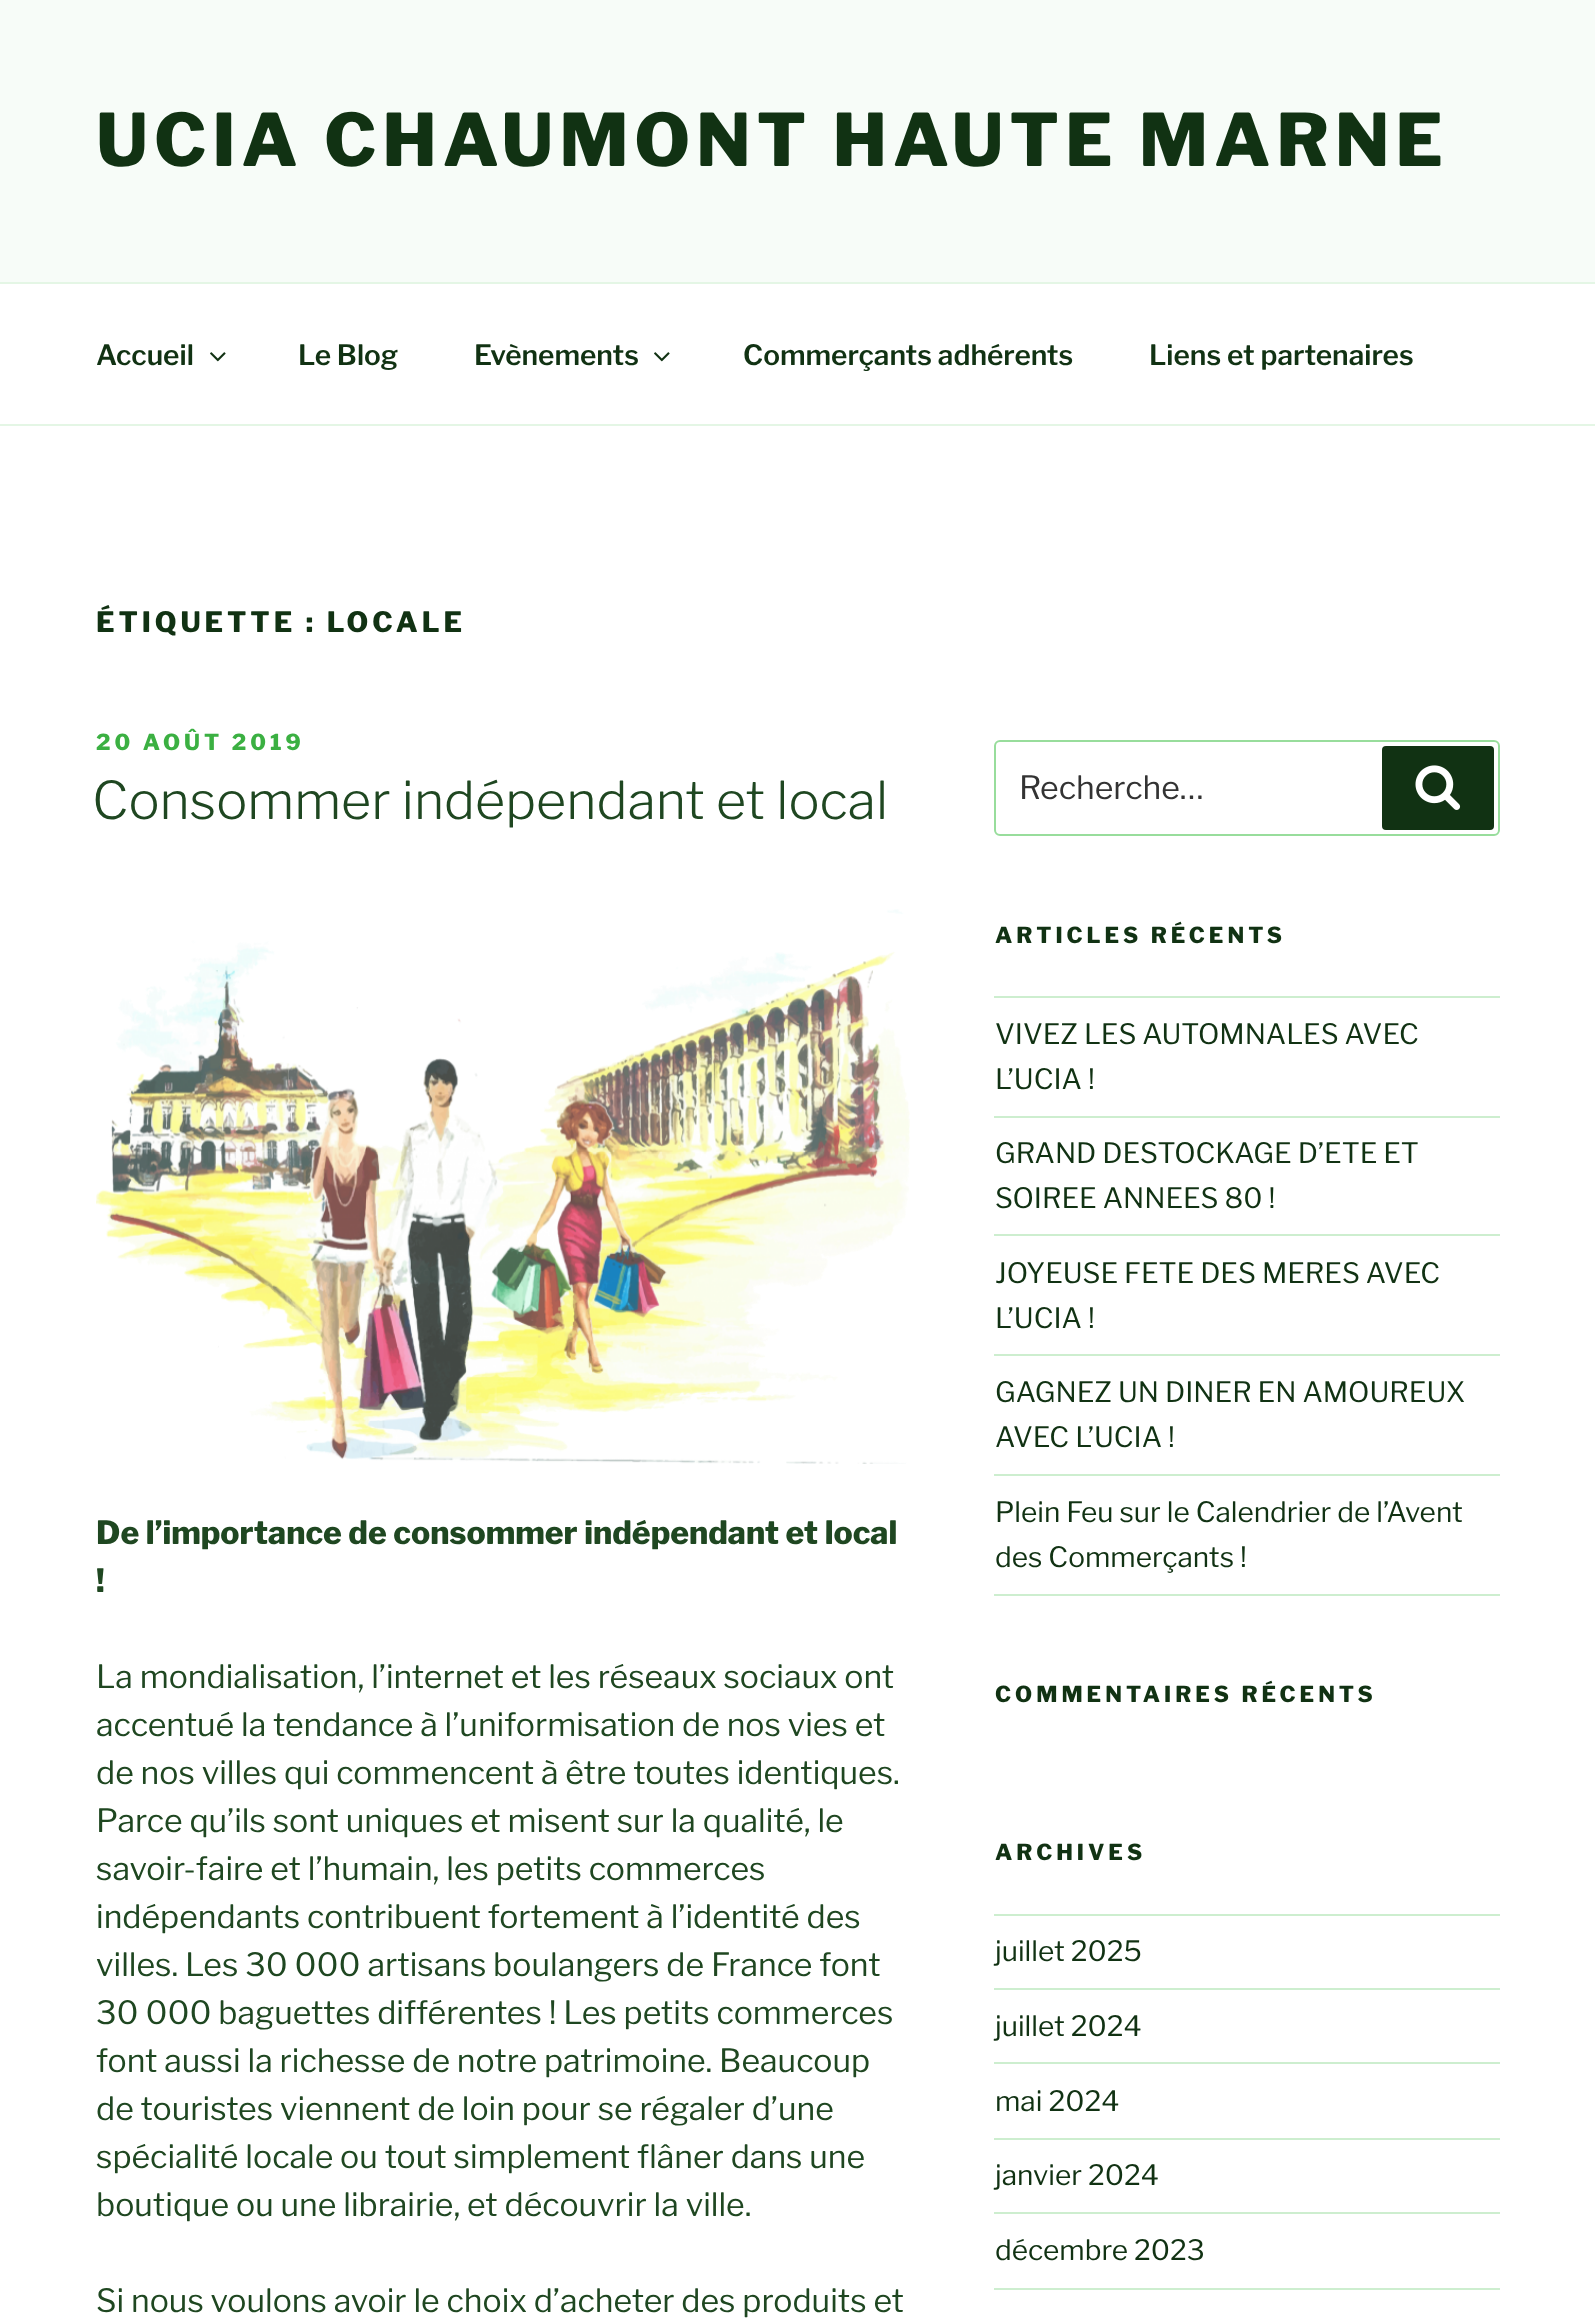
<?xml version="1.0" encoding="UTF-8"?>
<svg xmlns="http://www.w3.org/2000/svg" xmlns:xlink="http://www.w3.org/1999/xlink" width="1595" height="2323">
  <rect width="100%" height="100%" fill="#ffffff" />
  <rect width="1595" height="282" fill="#f7fcf8" />
  <rect y="282" width="1595" height="2" fill="#e4f6e5" />
  <rect y="424" width="1595" height="2" fill="#e4f6e5" />
  <image x="210" y="352" width="16" height="10" xlink:href="image1.png" />
  <image x="654" y="352" width="16" height="10" xlink:href="image1.png" />
  <image x="96" y="909" width="814" height="555" xlink:href="image2.png" />
  <rect x="995" y="741" width="504" height="94" rx="5" fill="none" stroke="#98dd9c" stroke-width="2" />
  <rect x="1382" y="746" width="112" height="84" rx="4" fill="#113213" />
  <image x="1415" y="765" width="46" height="45" xlink:href="image3.png" />
  <rect x="994" y="996" width="506" height="2" fill="#cdeecf" />
  <rect x="994" y="1116" width="506" height="2" fill="#cdeecf" />
  <rect x="994" y="1234" width="506" height="2" fill="#cdeecf" />
  <rect x="994" y="1354" width="506" height="2" fill="#cdeecf" />
  <rect x="994" y="1474" width="506" height="2" fill="#cdeecf" />
  <rect x="994" y="1594" width="506" height="2" fill="#cdeecf" />
  <rect x="994" y="1914" width="506" height="2" fill="#cdeecf" />
  <rect x="994" y="1988" width="506" height="2" fill="#cdeecf" />
  <rect x="994" y="2062" width="506" height="2" fill="#cdeecf" />
  <rect x="994" y="2138" width="506" height="2" fill="#cdeecf" />
  <rect x="994" y="2212" width="506" height="2" fill="#cdeecf" />
  <rect x="994" y="2288" width="506" height="2" fill="#cdeecf" />
  <text x="96" y="166" style="font-family: Libre Franklin; font-size: 72px; font-weight: 100; letter-spacing: 5.75px; fill: #113213">UCIA CHAUMONT HAUTE MARNE</text>
  <text x="96" y="365" style="font-family: 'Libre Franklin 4'; font-size: 28px; font-weight: 100; fill: #113213">Accueil</text>
  <text x="298" y="365" style="font-family: 'Libre Franklin 4'; font-size: 28px; font-weight: 100; fill: #113213">Le Blog</text>
  <text x="474" y="365" style="font-family: 'Libre Franklin 4'; font-size: 28px; font-weight: 100; fill: #113213">Evènements</text>
  <text x="743" y="365" style="font-family: 'Libre Franklin 4'; font-size: 28px; font-weight: 100; fill: #113213">Commerçants adhérents</text>
  <text x="1149" y="365" style="font-family: 'Libre Franklin 4'; font-size: 28px; font-weight: 100; fill: #113213">Liens et partenaires</text>
  <text x="96" y="632" style="font-family: Libre Franklin; font-size: 28px; font-weight: 100; letter-spacing: 3.9px; fill: #113213">ÉTIQUETTE : LOCALE</text>
  <text x="96" y="750" style="font-family: Libre Franklin; font-size: 22px; font-weight: 100; letter-spacing: 4px; fill: #3bb042">20 AOÛT 2019</text>
  <text x="92" y="819" style="font-family: 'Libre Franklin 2'; font-size: 52px; font-weight: 100; fill: #1f4721">Consommer indépendant et local</text>
  <text x="96" y="1544" style="font-family: Libre Franklin; font-size: 32px; font-weight: 100; fill: #1f4721">De l’importance de consommer indépendant et local</text>
  <text x="96" y="1592" style="font-family: Libre Franklin; font-size: 32px; font-weight: 100; fill: #1f4721">!</text>
  <text x="96" y="1688" style="font-family: 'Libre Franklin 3'; font-size: 32px; font-weight: 100; fill: #1f4721">La mondialisation, l’internet et les réseaux sociaux ont</text>
  <text x="96" y="1736" style="font-family: 'Libre Franklin 3'; font-size: 32px; font-weight: 100; fill: #1f4721">accentué la tendance à l’uniformisation de nos vies et</text>
  <text x="96" y="1784" style="font-family: 'Libre Franklin 3'; font-size: 32px; font-weight: 100; fill: #1f4721">de nos villes qui commencent à être toutes identiques.</text>
  <text x="96" y="1832" style="font-family: 'Libre Franklin 3'; font-size: 32px; font-weight: 100; fill: #1f4721">Parce qu’ils sont uniques et misent sur la qualité, le</text>
  <text x="96" y="1880" style="font-family: 'Libre Franklin 3'; font-size: 32px; font-weight: 100; fill: #1f4721">savoir-faire et l’humain, les petits commerces</text>
  <text x="96" y="1928" style="font-family: 'Libre Franklin 3'; font-size: 32px; font-weight: 100; fill: #1f4721">indépendants contribuent fortement à l’identité des</text>
  <text x="96" y="1976" style="font-family: 'Libre Franklin 3'; font-size: 32px; font-weight: 100; fill: #1f4721">villes. Les 30 000 artisans boulangers de France font</text>
  <text x="96" y="2024" style="font-family: 'Libre Franklin 3'; font-size: 32px; font-weight: 100; fill: #1f4721">30 000 baguettes différentes ! Les petits commerces</text>
  <text x="96" y="2072" style="font-family: 'Libre Franklin 3'; font-size: 32px; font-weight: 100; fill: #1f4721">font aussi la richesse de notre patrimoine. Beaucoup</text>
  <text x="96" y="2120" style="font-family: 'Libre Franklin 3'; font-size: 32px; font-weight: 100; fill: #1f4721">de touristes viennent de loin pour se régaler d’une</text>
  <text x="96" y="2168" style="font-family: 'Libre Franklin 3'; font-size: 32px; font-weight: 100; fill: #1f4721">spécialité locale ou tout simplement flâner dans une</text>
  <text x="96" y="2216" style="font-family: 'Libre Franklin 3'; font-size: 32px; font-weight: 100; fill: #1f4721">boutique ou une librairie, et découvrir la ville.</text>
  <text x="96" y="2312" style="font-family: 'Libre Franklin 3'; font-size: 32px; font-weight: 100; fill: #1f4721">Si nous voulons avoir le choix d’acheter des produits et</text>
  <text x="1019" y="799" style="font-family: 'Libre Franklin 3'; font-size: 32px; font-weight: 100; fill: #333333">Recherche…</text>
  <text x="995" y="943" style="font-family: Libre Franklin; font-size: 22px; font-weight: 100; letter-spacing: 4px; fill: #113213">ARTICLES RÉCENTS</text>
  <text x="995" y="1044" style="font-family: 'Libre Franklin 3'; font-size: 28px; font-weight: 100; fill: #113213">VIVEZ LES AUTOMNALES AVEC</text>
  <text x="995" y="1089" style="font-family: 'Libre Franklin 3'; font-size: 28px; font-weight: 100; fill: #113213">L’UCIA !</text>
  <text x="995" y="1163" style="font-family: 'Libre Franklin 3'; font-size: 28px; font-weight: 100; fill: #113213">GRAND DESTOCKAGE D’ETE ET</text>
  <text x="995" y="1208" style="font-family: 'Libre Franklin 3'; font-size: 28px; font-weight: 100; fill: #113213">SOIREE ANNEES 80 !</text>
  <text x="995" y="1283" style="font-family: 'Libre Franklin 3'; font-size: 28px; font-weight: 100; fill: #113213">JOYEUSE FETE DES MERES AVEC</text>
  <text x="995" y="1328" style="font-family: 'Libre Franklin 3'; font-size: 28px; font-weight: 100; fill: #113213">L’UCIA !</text>
  <text x="995" y="1402" style="font-family: 'Libre Franklin 3'; font-size: 28px; font-weight: 100; fill: #113213">GAGNEZ UN DINER EN AMOUREUX</text>
  <text x="995" y="1447" style="font-family: 'Libre Franklin 3'; font-size: 28px; font-weight: 100; fill: #113213">AVEC L’UCIA !</text>
  <text x="995" y="1522" style="font-family: 'Libre Franklin 3'; font-size: 28px; font-weight: 100; fill: #113213">Plein Feu sur le Calendrier de l’Avent</text>
  <text x="995" y="1567" style="font-family: 'Libre Franklin 3'; font-size: 28px; font-weight: 100; fill: #113213">des Commerçants !</text>
  <text x="995" y="1702" style="font-family: Libre Franklin; font-size: 22px; font-weight: 100; letter-spacing: 4px; fill: #113213">COMMENTAIRES RÉCENTS</text>
  <text x="995" y="1860" style="font-family: Libre Franklin; font-size: 22px; font-weight: 100; letter-spacing: 4px; fill: #113213">ARCHIVES</text>
  <text x="995" y="1961" style="font-family: 'Libre Franklin 3'; font-size: 28px; font-weight: 100; fill: #113213">juillet 2025</text>
  <text x="995" y="2036" style="font-family: 'Libre Franklin 3'; font-size: 28px; font-weight: 100; fill: #113213">juillet 2024</text>
  <text x="995" y="2111" style="font-family: 'Libre Franklin 3'; font-size: 28px; font-weight: 100; fill: #113213">mai 2024</text>
  <text x="995" y="2185" style="font-family: 'Libre Franklin 3'; font-size: 28px; font-weight: 100; fill: #113213">janvier 2024</text>
  <text x="995" y="2260" style="font-family: 'Libre Franklin 3'; font-size: 28px; font-weight: 100; fill: #113213">décembre 2023</text>
</svg>
